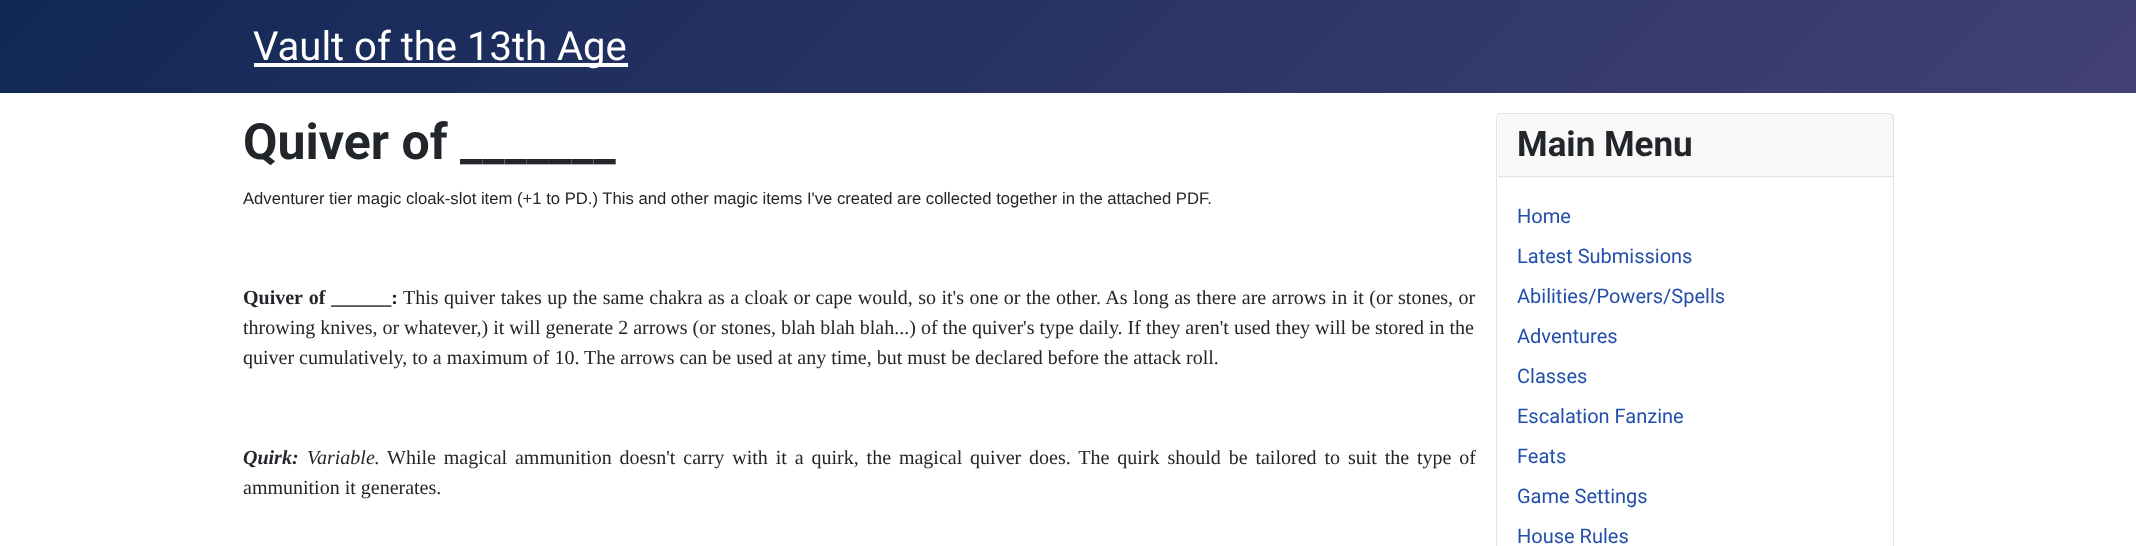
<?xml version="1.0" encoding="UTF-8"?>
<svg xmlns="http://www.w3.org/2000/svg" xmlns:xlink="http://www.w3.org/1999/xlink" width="2136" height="546">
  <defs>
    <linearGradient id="g1" gradientUnits="userSpaceOnUse" x1="511" y1="-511" x2="1625" y2="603"><stop offset="0" stop-color="#112855" /><stop offset="1" stop-color="#424077" /></linearGradient>
  </defs>
  <rect width="100%" height="100%" fill="#ffffff" />
  <rect width="2136" height="93" fill="url(#g1)" />
  <rect x="254" y="63" width="374" height="4" fill="#ffffff" />
  <rect x="1496.5" y="113.5" width="397" height="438" rx="4.5" fill="none" stroke="#dfe3e7" />
  <rect x="1498" y="114" width="395" height="64" fill="#22262a" fill-opacity="0.03" />
  <rect x="1498" y="176" width="395" height="1" fill="#dfe3e7" />
  <text x="253" y="60" style="font-family: Roboto; font-size: 40px; fill: #ffffff">Vault of the 13th Age</text>
  <text x="243" y="159" style="font-family: Roboto; font-size: 50px; font-weight: bold; fill: #22262a">Quiver of _______</text>
  <text x="243" y="204" style="font-family: Liberation Sans; font-size: 16.67px; fill: #22262a">Adventurer tier magic cloak-slot item (+1 to PD.) This and other magic items I've created are collected together in the attached PDF.</text>
  <text x="243" y="304" word-spacing="1" style="font-family: Liberation Serif; font-size: 20px; font-weight: bold; fill: #22262a">Quiver of ______:</text>
  <text x="403" y="304" word-spacing="0.5" style="font-family: Liberation Serif; font-size: 20px; fill: #22262a">This quiver takes up the same chakra as a cloak or cape would, so it's one or the other. As long as there are arrows in it (or stones, or</text>
  <text x="243" y="334" style="font-family: Liberation Serif; font-size: 20px; fill: #22262a">throwing knives, or whatever,) it will generate 2 arrows (or stones, blah blah blah...) of the quiver's type daily. If they aren't used they will be stored in the</text>
  <text x="243" y="364" style="font-family: Liberation Serif; font-size: 20px; fill: #22262a">quiver cumulatively, to a maximum of 10. The arrows can be used at any time, but must be declared before the attack roll.</text>
  <text x="243" y="464" style="font-family: Liberation Serif; font-size: 20px; font-weight: bold; font-style: italic; fill: #22262a">Quirk:</text>
  <text x="307" y="464" style="font-family: Liberation Serif; font-size: 20px; font-style: italic; fill: #22262a">Variable.</text>
  <text x="387" y="464" word-spacing="2.9" style="font-family: Liberation Serif; font-size: 20px; fill: #22262a">While magical ammunition doesn't carry with it a quirk, the magical quiver does. The quirk should be tailored to suit the type of</text>
  <text x="243" y="494" style="font-family: Liberation Serif; font-size: 20px; fill: #22262a">ammunition it generates.</text>
  <text x="1517" y="156" style="font-family: Roboto; font-size: 35px; font-weight: bold; fill: #22262a">Main Menu</text>
  <text x="1517" y="223" style="font-family: Roboto; font-size: 20px; fill: #224faa">Home</text>
  <text x="1517" y="263" style="font-family: Roboto; font-size: 20px; fill: #224faa">Latest Submissions</text>
  <text x="1517" y="303" style="font-family: Roboto; font-size: 20px; fill: #224faa">Abilities/Powers/Spells</text>
  <text x="1517" y="343" style="font-family: Roboto; font-size: 20px; fill: #224faa">Adventures</text>
  <text x="1517" y="383" style="font-family: Roboto; font-size: 20px; fill: #224faa">Classes</text>
  <text x="1517" y="423" style="font-family: Roboto; font-size: 20px; fill: #224faa">Escalation Fanzine</text>
  <text x="1517" y="463" style="font-family: Roboto; font-size: 20px; fill: #224faa">Feats</text>
  <text x="1517" y="503" style="font-family: Roboto; font-size: 20px; fill: #224faa">Game Settings</text>
  <text x="1517" y="543" style="font-family: Roboto; font-size: 20px; fill: #224faa">House Rules</text>
</svg>
